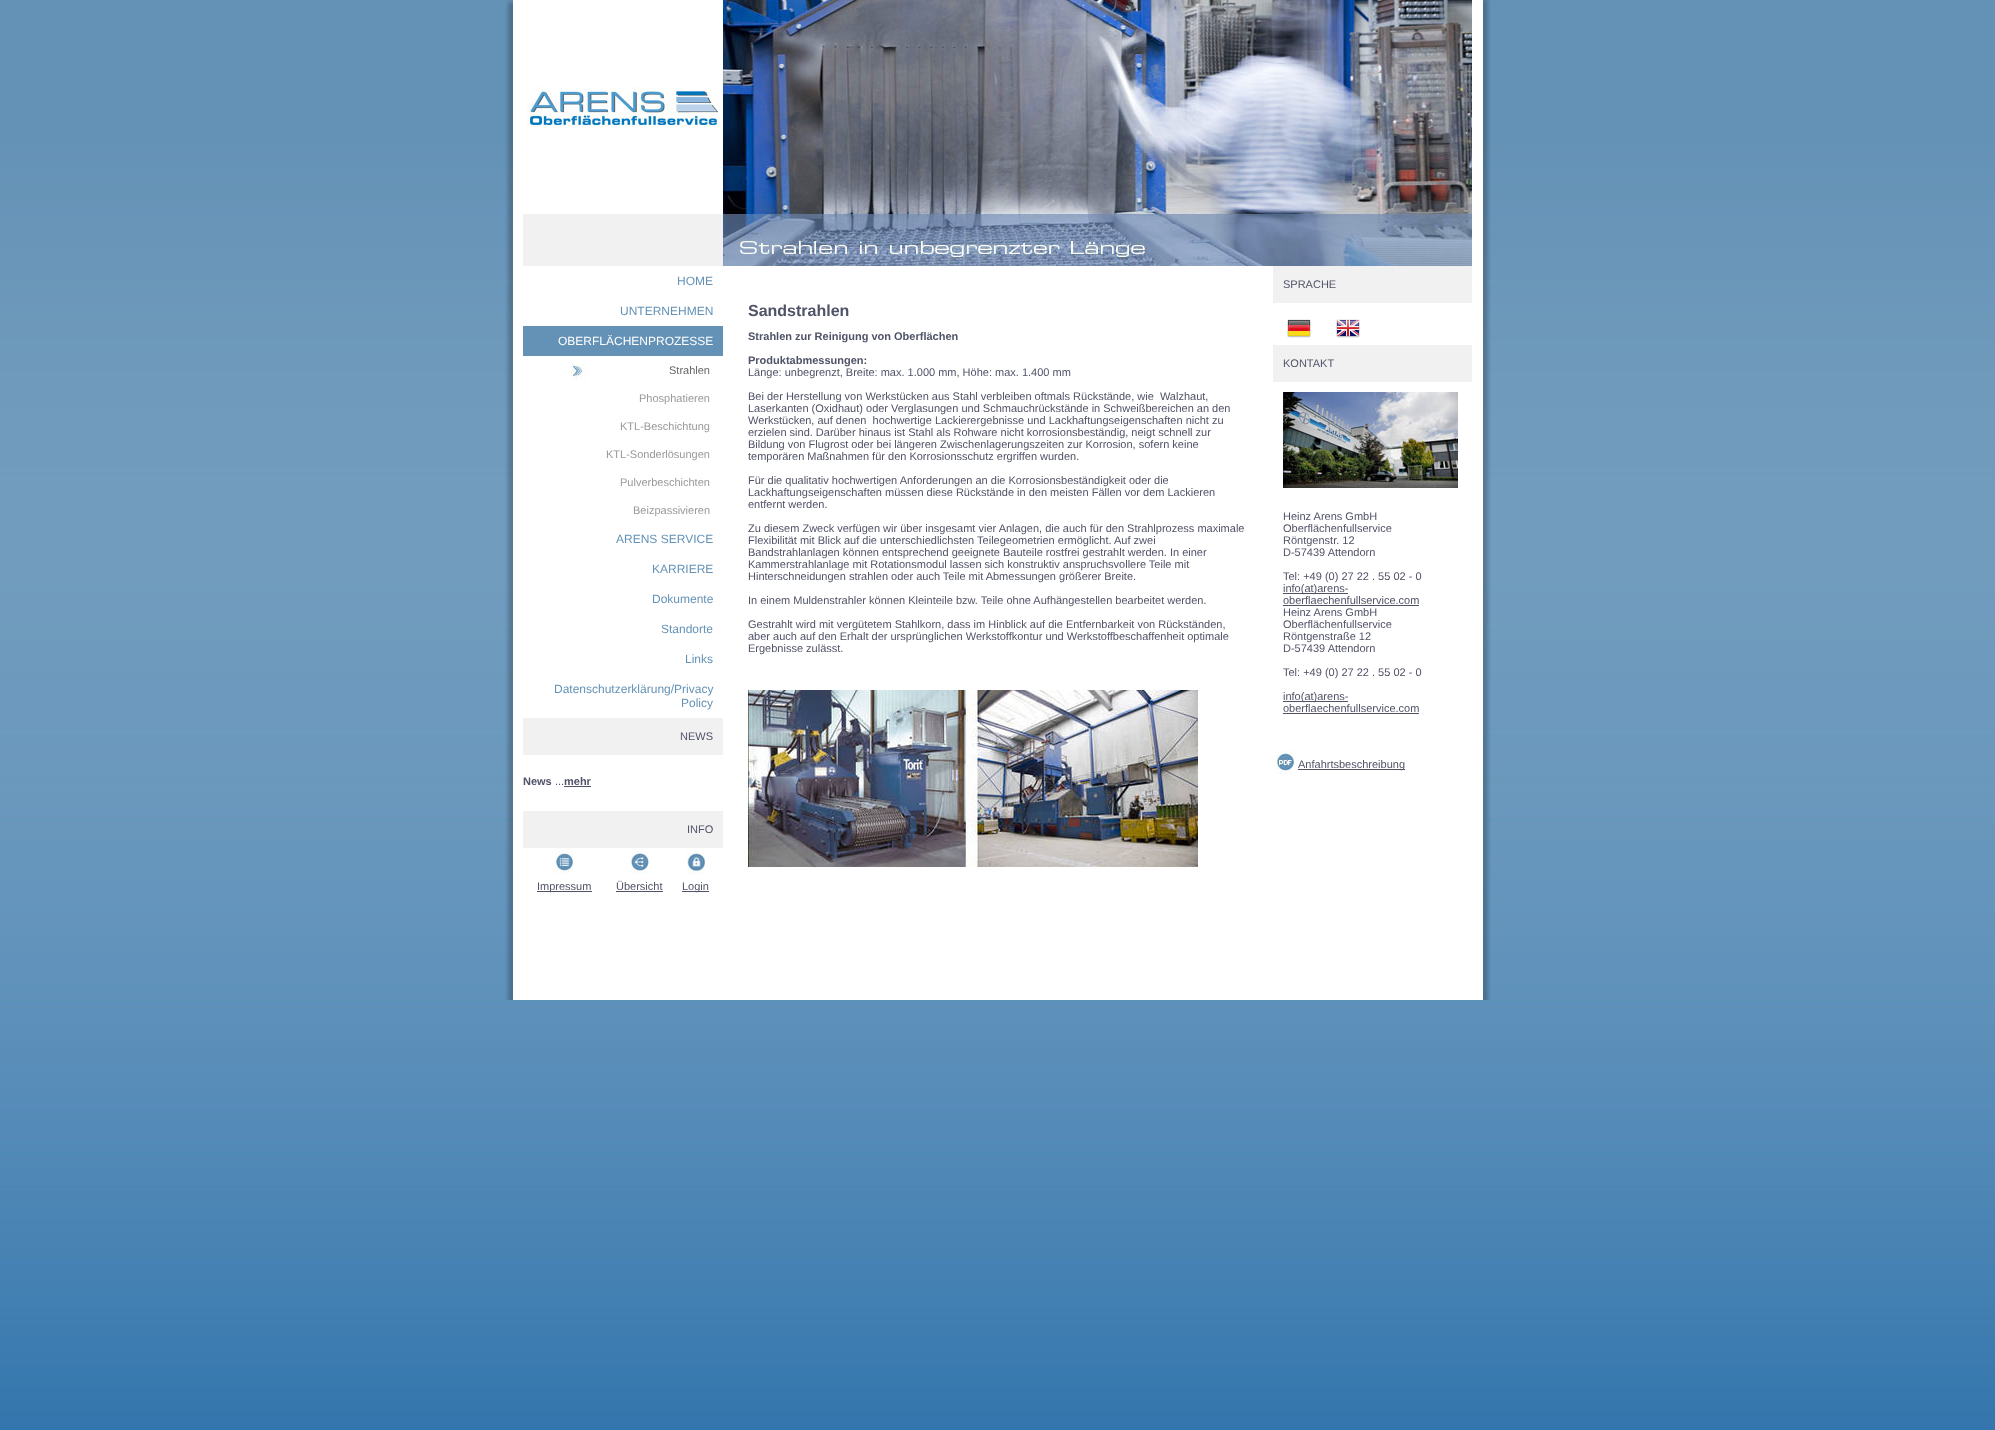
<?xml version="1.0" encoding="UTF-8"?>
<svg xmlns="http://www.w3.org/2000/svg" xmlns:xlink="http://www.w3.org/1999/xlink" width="1995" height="1430">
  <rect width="100%" height="100%" fill="#ffffff" />
  <image x="0" y="0" width="1995" height="1430" xlink:href="image1.png" />
  <image x="505" y="0" width="986" height="1000" xlink:href="image2.png" />
  <rect x="524" y="266" width="948" height="734" fill="#ffffff" />
  <rect x="524" width="199" height="214" fill="#ffffff" />
  <image x="527" y="87" width="192" height="40" xlink:href="image3.png" />
  <rect x="523" y="214" width="200" height="52" fill="#f1f1f2" />
  <image x="723" y="0" width="749" height="266" xlink:href="image4.png" />
  <rect x="523" y="326" width="200" height="30" fill="#6492b6" />
  <image x="571" y="364" width="16" height="16" xlink:href="image5.png" />
  <rect x="523" y="718" width="200" height="37" fill="#f1f1f2" />
  <rect x="564" y="786" width="27" height="1" fill="#505367" />
  <rect x="523" y="811" width="200" height="37" fill="#f1f1f2" />
  <image x="555" y="851" width="18" height="23" xlink:href="image6.png" />
  <image x="631" y="851" width="18" height="23" xlink:href="image7.png" />
  <image x="687" y="851" width="18" height="23" xlink:href="image8.png" />
  <rect x="537" y="891" width="55" height="1" fill="#505367" />
  <rect x="616" y="891" width="47" height="1" fill="#505367" />
  <rect x="682" y="891" width="27" height="1" fill="#505367" />
  <image x="748" y="690" width="450" height="177" xlink:href="image9.png" />
  <rect x="1273" y="266" width="199" height="37" fill="#f1f1f2" />
  <image x="1287" y="319" width="24" height="19" xlink:href="image10.png" />
  <image x="1336" y="319" width="24" height="19" xlink:href="image11.png" />
  <rect x="1273" y="345" width="199" height="37" fill="#f1f1f2" />
  <image x="1283" y="392" width="175" height="96" xlink:href="image12.png" />
  <rect x="1283" y="593" width="65" height="1" fill="#505367" />
  <rect x="1283" y="605" width="136" height="1" fill="#505367" />
  <rect x="1283" y="701" width="65" height="1" fill="#505367" />
  <rect x="1283" y="713" width="136" height="1" fill="#505367" />
  <image x="1276" y="751" width="18" height="23" xlink:href="image13.png" />
  <rect x="1298" y="769" width="107" height="1" fill="#505367" />
  <text x="677" y="285" style="font-family: Liberation Sans; font-size: 12px; fill: #6492b6">HOME</text>
  <text x="620" y="315" style="font-family: Liberation Sans; font-size: 12px; fill: #6492b6">UNTERNEHMEN</text>
  <text x="558" y="345" style="font-family: Liberation Sans; font-size: 12px; fill: #ffffff">OBERFLÄCHENPROZESSE</text>
  <text x="669" y="374" style="font-family: Liberation Sans; font-size: 11px; fill: #666666">Strahlen</text>
  <text x="639" y="402" style="font-family: Liberation Sans; font-size: 11px; fill: #999999">Phosphatieren</text>
  <text x="620" y="430" style="font-family: Liberation Sans; font-size: 11px; fill: #999999">KTL-Beschichtung</text>
  <text x="606" y="458" style="font-family: Liberation Sans; font-size: 11px; fill: #999999">KTL-Sonderlösungen</text>
  <text x="620" y="486" style="font-family: Liberation Sans; font-size: 11px; fill: #999999">Pulverbeschichten</text>
  <text x="633" y="514" style="font-family: Liberation Sans; font-size: 11px; fill: #999999">Beizpassivieren</text>
  <text x="616" y="543" style="font-family: Liberation Sans; font-size: 12px; fill: #6492b6">ARENS SERVICE</text>
  <text x="652" y="573" style="font-family: Liberation Sans; font-size: 12px; fill: #6492b6">KARRIERE</text>
  <text x="652" y="603" style="font-family: Liberation Sans; font-size: 12px; fill: #6492b6">Dokumente</text>
  <text x="661" y="633" style="font-family: Liberation Sans; font-size: 12px; fill: #6492b6">Standorte</text>
  <text x="685" y="663" style="font-family: Liberation Sans; font-size: 12px; fill: #6492b6">Links</text>
  <text x="554" y="693" style="font-family: Liberation Sans; font-size: 12px; fill: #6492b6">Datenschutzerklärung/Privacy</text>
  <text x="681" y="707" style="font-family: Liberation Sans; font-size: 12px; fill: #6492b6">Policy</text>
  <text x="680" y="740" style="font-family: Liberation Sans; font-size: 11px; fill: #505367">NEWS</text>
  <text x="523" y="785" style="font-family: Liberation Sans; font-size: 11px; font-weight: bold; fill: #505367">News</text>
  <text x="555" y="785" style="font-family: Liberation Sans; font-size: 11px; fill: #505367">...</text>
  <text x="564" y="785" style="font-family: Liberation Sans; font-size: 11px; font-weight: bold; fill: #505367">mehr</text>
  <text x="687" y="833" style="font-family: Liberation Sans; font-size: 11px; fill: #505367">INFO</text>
  <text x="537" y="890" style="font-family: Liberation Sans; font-size: 11px; fill: #505367">Impressum</text>
  <text x="616" y="890" style="font-family: Liberation Sans; font-size: 11px; fill: #505367">Übersicht</text>
  <text x="682" y="890" style="font-family: Liberation Sans; font-size: 11px; fill: #505367">Login</text>
  <text x="748" y="316" style="font-family: Liberation Sans; font-size: 16px; font-weight: bold; fill: #505367">Sandstrahlen</text>
  <text x="748" y="340" style="font-family: Liberation Sans; font-size: 11px; font-weight: bold; fill: #505367">Strahlen zur Reinigung von Oberflächen</text>
  <text x="748" y="364" style="font-family: Liberation Sans; font-size: 11px; font-weight: bold; fill: #505367">Produktabmessungen:</text>
  <text x="748" y="376" style="font-family: Liberation Sans; font-size: 11px; fill: #505367">Länge: unbegrenzt, Breite: max. 1.000 mm, Höhe: max. 1.400 mm</text>
  <text x="748" y="400" style="font-family: Liberation Sans; font-size: 11px; fill: #505367" xml:space="preserve">Bei der Herstellung von Werkstücken aus Stahl verbleiben oftmals Rückstände, wie  Walzhaut,</text>
  <text x="748" y="412" style="font-family: Liberation Sans; font-size: 11px; fill: #505367">Laserkanten (Oxidhaut) oder Verglasungen und Schmauchrückstände in Schweißbereichen an den</text>
  <text x="748" y="424" style="font-family: Liberation Sans; font-size: 11px; fill: #505367" xml:space="preserve">Werkstücken, auf denen  hochwertige Lackierergebnisse und Lackhaftungseigenschaften nicht zu</text>
  <text x="748" y="436" style="font-family: Liberation Sans; font-size: 11px; fill: #505367">erzielen sind. Darüber hinaus ist Stahl als Rohware nicht korrosionsbeständig, neigt schnell zur</text>
  <text x="748" y="448" style="font-family: Liberation Sans; font-size: 11px; fill: #505367">Bildung von Flugrost oder bei längeren Zwischenlagerungszeiten zur Korrosion, sofern keine</text>
  <text x="748" y="460" style="font-family: Liberation Sans; font-size: 11px; fill: #505367">temporären Maßnahmen für den Korrosionsschutz ergriffen wurden.</text>
  <text x="748" y="484" style="font-family: Liberation Sans; font-size: 11px; fill: #505367">Für die qualitativ hochwertigen Anforderungen an die Korrosionsbeständigkeit oder die</text>
  <text x="748" y="496" style="font-family: Liberation Sans; font-size: 11px; fill: #505367">Lackhaftungseigenschaften müssen diese Rückstände in den meisten Fällen vor dem Lackieren</text>
  <text x="748" y="508" style="font-family: Liberation Sans; font-size: 11px; fill: #505367">entfernt werden.</text>
  <text x="748" y="532" style="font-family: Liberation Sans; font-size: 11px; fill: #505367">Zu diesem Zweck verfügen wir über insgesamt vier Anlagen, die auch für den Strahlprozess maximale</text>
  <text x="748" y="544" style="font-family: Liberation Sans; font-size: 11px; fill: #505367">Flexibilität mit Blick auf die unterschiedlichsten Teilegeometrien ermöglicht. Auf zwei</text>
  <text x="748" y="556" style="font-family: Liberation Sans; font-size: 11px; fill: #505367">Bandstrahlanlagen können entsprechend geeignete Bauteile rostfrei gestrahlt werden. In einer</text>
  <text x="748" y="568" style="font-family: Liberation Sans; font-size: 11px; fill: #505367">Kammerstrahlanlage mit Rotationsmodul lassen sich konstruktiv anspruchsvollere Teile mit</text>
  <text x="748" y="580" style="font-family: Liberation Sans; font-size: 11px; fill: #505367">Hinterschneidungen strahlen oder auch Teile mit Abmessungen größerer Breite.</text>
  <text x="748" y="604" style="font-family: Liberation Sans; font-size: 11px; fill: #505367">In einem Muldenstrahler können Kleinteile bzw. Teile ohne Aufhängestellen bearbeitet werden.</text>
  <text x="748" y="628" style="font-family: Liberation Sans; font-size: 11px; fill: #505367">Gestrahlt wird mit vergütetem Stahlkorn, dass im Hinblick auf die Entfernbarkeit von Rückständen,</text>
  <text x="748" y="640" style="font-family: Liberation Sans; font-size: 11px; fill: #505367">aber auch auf den Erhalt der ursprünglichen Werkstoffkontur und Werkstoffbeschaffenheit optimale</text>
  <text x="748" y="652" style="font-family: Liberation Sans; font-size: 11px; fill: #505367">Ergebnisse zulässt.</text>
  <text x="1283" y="288" style="font-family: Liberation Sans; font-size: 11px; fill: #505367">SPRACHE</text>
  <text x="1283" y="367" style="font-family: Liberation Sans; font-size: 11px; fill: #505367">KONTAKT</text>
  <text x="1283" y="520" style="font-family: Liberation Sans; font-size: 11px; fill: #505367">Heinz Arens GmbH</text>
  <text x="1283" y="532" style="font-family: Liberation Sans; font-size: 11px; fill: #505367">Oberflächenfullservice</text>
  <text x="1283" y="544" style="font-family: Liberation Sans; font-size: 11px; fill: #505367">Röntgenstr. 12</text>
  <text x="1283" y="556" style="font-family: Liberation Sans; font-size: 11px; fill: #505367">D-57439 Attendorn</text>
  <text x="1283" y="580" style="font-family: Liberation Sans; font-size: 11px; fill: #505367">Tel: +49 (0) 27 22 . 55 02 - 0</text>
  <text x="1283" y="592" style="font-family: Liberation Sans; font-size: 11px; fill: #505367">info(at)arens-</text>
  <text x="1283" y="604" style="font-family: Liberation Sans; font-size: 11px; fill: #505367">oberflaechenfullservice.com</text>
  <text x="1283" y="616" style="font-family: Liberation Sans; font-size: 11px; fill: #505367">Heinz Arens GmbH</text>
  <text x="1283" y="628" style="font-family: Liberation Sans; font-size: 11px; fill: #505367">Oberflächenfullservice</text>
  <text x="1283" y="640" style="font-family: Liberation Sans; font-size: 11px; fill: #505367">Röntgenstraße 12</text>
  <text x="1283" y="652" style="font-family: Liberation Sans; font-size: 11px; fill: #505367">D-57439 Attendorn</text>
  <text x="1283" y="676" style="font-family: Liberation Sans; font-size: 11px; fill: #505367">Tel: +49 (0) 27 22 . 55 02 - 0</text>
  <text x="1283" y="700" style="font-family: Liberation Sans; font-size: 11px; fill: #505367">info(at)arens-</text>
  <text x="1283" y="712" style="font-family: Liberation Sans; font-size: 11px; fill: #505367">oberflaechenfullservice.com</text>
  <text x="1298" y="768" style="font-family: Liberation Sans; font-size: 11px; fill: #505367">Anfahrtsbeschreibung</text>
</svg>
